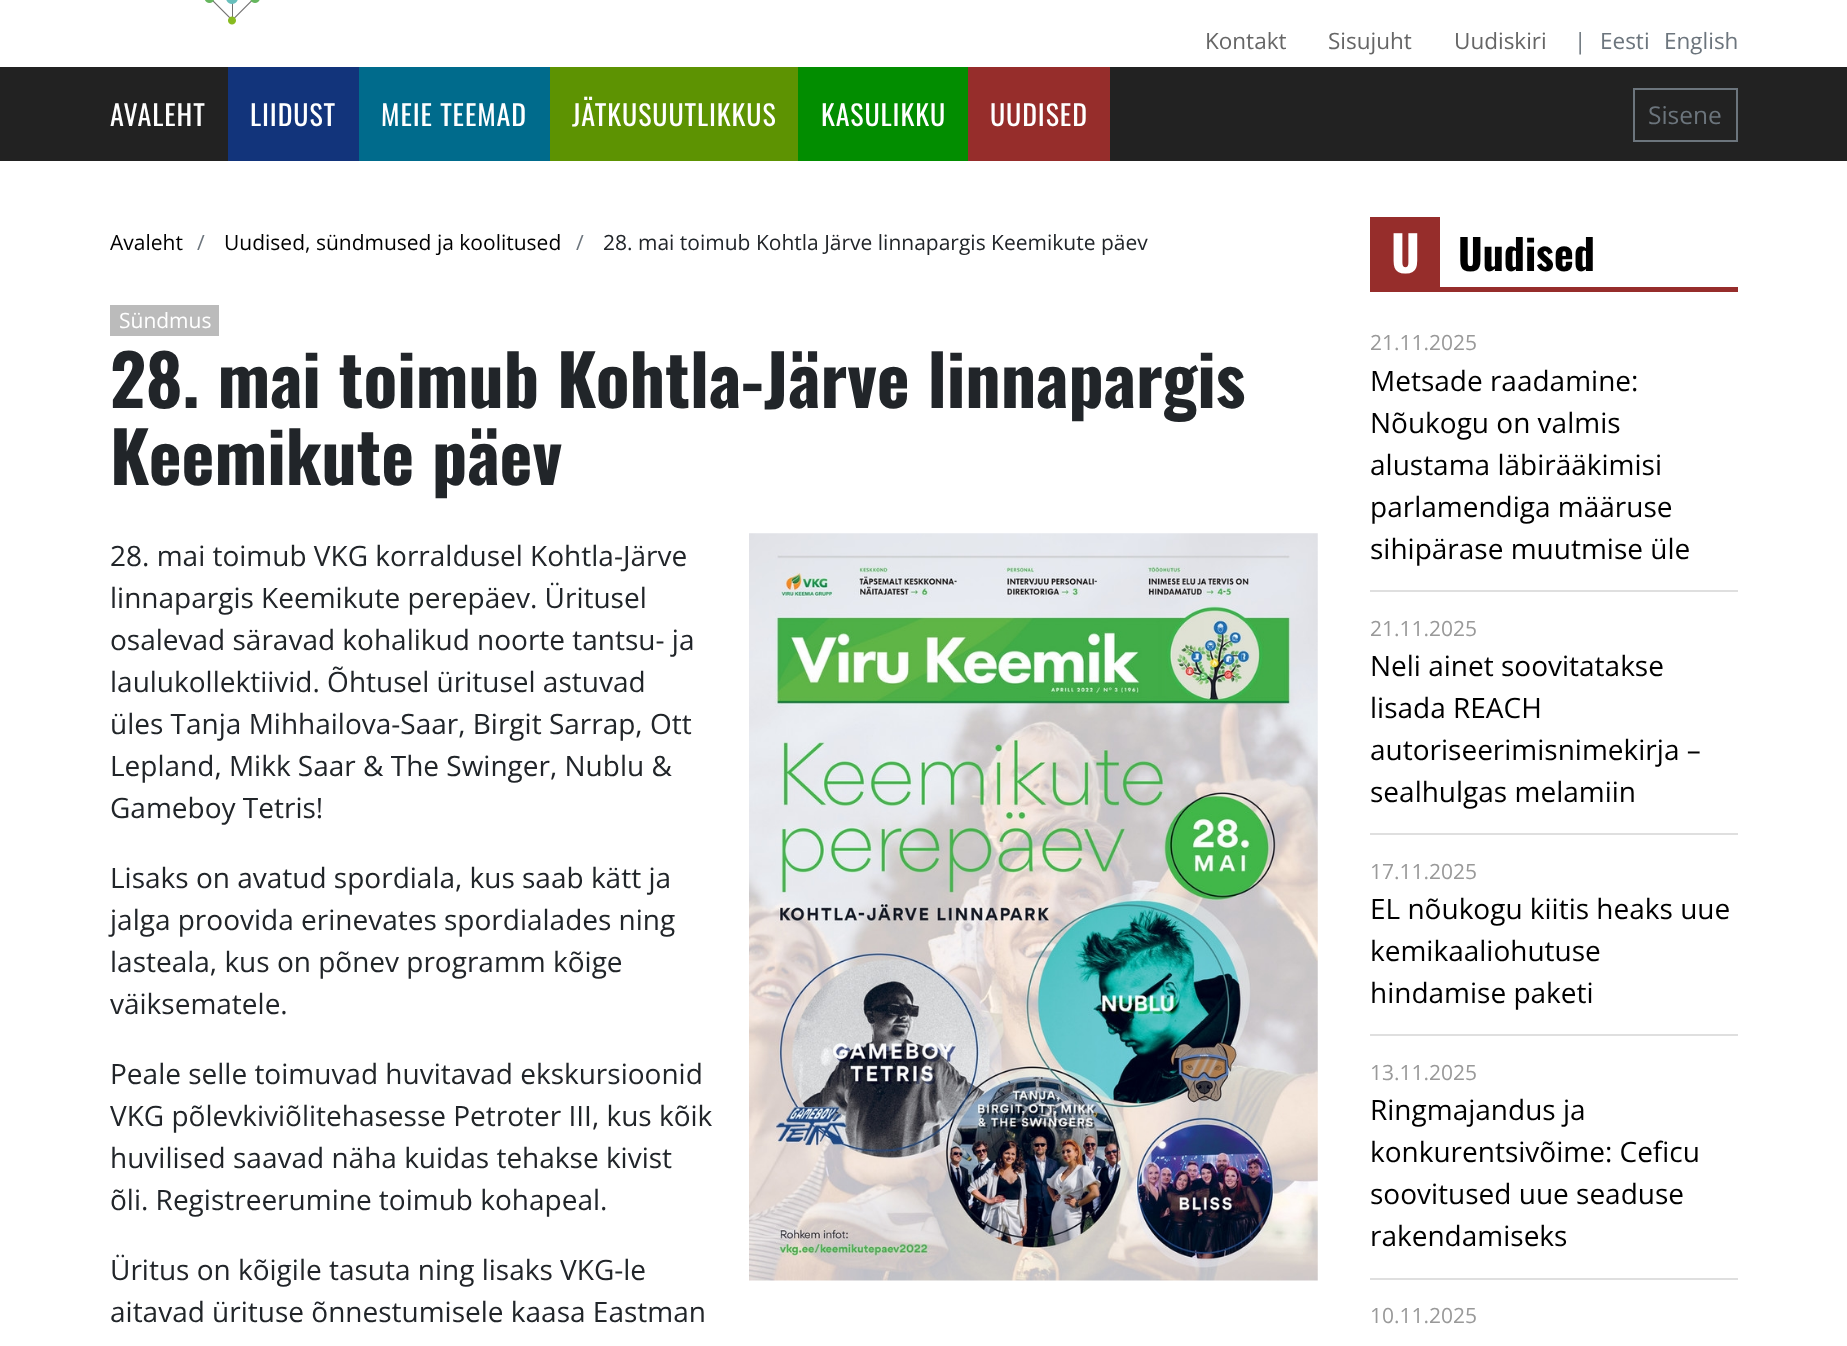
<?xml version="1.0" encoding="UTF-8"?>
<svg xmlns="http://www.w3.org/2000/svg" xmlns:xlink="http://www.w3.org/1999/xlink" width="1847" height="1346">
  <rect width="100%" height="100%" fill="#ffffff" />
  <image x="205" y="0" width="55" height="25" xlink:href="image1.png" />
  <rect y="67" width="1847" height="94" fill="#222222" />
  <rect x="228" y="67" width="131" height="94" fill="#12347b" />
  <rect x="359" y="67" width="191" height="94" fill="#006b8c" />
  <rect x="550" y="67" width="248" height="94" fill="#5d9302" />
  <rect x="798" y="67" width="170" height="94" fill="#028d00" />
  <rect x="968" y="67" width="142" height="94" fill="#962d2b" />
  <rect x="1634" y="89" width="103" height="52" fill="none" stroke="#6c757d" stroke-width="2" />
  <rect x="110" y="305" width="109" height="31" fill="#bbbbbb" />
  <image x="749" y="533" width="569" height="748" xlink:href="image2.png" />
  <rect x="1370" y="287" width="368" height="5" fill="#962d2b" />
  <rect x="1370" y="217" width="70" height="70" fill="#962d2b" />
  <rect x="1370" y="590" width="368" height="2" fill="#dfdfdf" />
  <rect x="1370" y="833" width="368" height="2" fill="#dfdfdf" />
  <rect x="1370" y="1034" width="368" height="2" fill="#dfdfdf" />
  <rect x="1370" y="1278" width="368" height="2" fill="#dfdfdf" />
  <text x="1205" y="49" style="font-family: Open Sans; font-size: 22.5px; fill: #666666">Kontakt</text>
  <text x="1328" y="49" style="font-family: Open Sans; font-size: 22.5px; fill: #666666">Sisujuht</text>
  <text x="1454" y="49" style="font-family: Open Sans; font-size: 22.5px; fill: #666666">Uudiskiri</text>
  <text x="1574" y="49" style="font-family: Open Sans; font-size: 22.5px; fill: #6c757d">|</text>
  <text x="1600" y="49" style="font-family: Open Sans; font-size: 22.5px; fill: #6c757d">Eesti</text>
  <text x="1664" y="49" style="font-family: Open Sans; font-size: 22.5px; fill: #6c757d">English</text>
  <text x="110" y="126" style="font-family: Oswald; font-size: 28px; letter-spacing: 0.9px; fill: #ffffff">AVALEHT</text>
  <text x="250" y="126" style="font-family: Oswald; font-size: 28px; letter-spacing: 0.9px; fill: #ffffff">LIIDUST</text>
  <text x="381" y="126" style="font-family: Oswald; font-size: 28px; letter-spacing: 0.9px; fill: #ffffff">MEIE TEEMAD</text>
  <text x="572" y="126" style="font-family: Oswald; font-size: 28px; letter-spacing: 0.9px; fill: #ffffff">JÄTKUSUUTLIKKUS</text>
  <text x="821" y="126" style="font-family: Oswald; font-size: 28px; letter-spacing: 0.9px; fill: #ffffff">KASULIKKU</text>
  <text x="990" y="126" style="font-family: Oswald; font-size: 28px; letter-spacing: 0.9px; fill: #ffffff">UUDISED</text>
  <text x="1648" y="124" style="font-family: Open Sans; font-size: 24.5px; fill: #6c757d">Sisene</text>
  <text x="110" y="250" style="font-family: Open Sans; font-size: 21px; fill: #000000">Avaleht</text>
  <text x="197" y="250" style="font-family: Open Sans; font-size: 21px; fill: #6c757d">/</text>
  <text x="224" y="250" style="font-family: Open Sans; font-size: 21px; fill: #000000">Uudised, sündmused ja koolitused</text>
  <text x="576" y="250" style="font-family: Open Sans; font-size: 21px; fill: #6c757d">/</text>
  <text x="603" y="250" style="font-family: Open Sans; font-size: 21px; fill: #212529">28. mai toimub Kohtla Järve linnapargis Keemikute päev</text>
  <text x="119" y="328" style="font-family: Open Sans; font-size: 21px; fill: #ffffff">Sündmus</text>
  <text x="110" y="408" style="font-family: Oswald; font-size: 70px; font-weight: bold; fill: #212529">28. mai toimub Kohtla-Järve linnapargis</text>
  <text x="110" y="485" style="font-family: Oswald; font-size: 70px; font-weight: bold; fill: #212529">Keemikute päev</text>
  <text x="110" y="566" style="font-family: Open Sans; font-size: 28px; fill: #212529">28. mai toimub VKG korraldusel Kohtla-Järve</text>
  <text x="110" y="608" style="font-family: Open Sans; font-size: 28px; fill: #212529">linnapargis Keemikute perepäev. Üritusel</text>
  <text x="110" y="650" style="font-family: Open Sans; font-size: 28px; fill: #212529">osalevad säravad kohalikud noorte tantsu- ja</text>
  <text x="110" y="692" style="font-family: Open Sans; font-size: 28px; fill: #212529">laulukollektiivid. Õhtusel üritusel astuvad</text>
  <text x="110" y="734" style="font-family: Open Sans; font-size: 28px; fill: #212529">üles Tanja Mihhailova-Saar, Birgit Sarrap, Ott</text>
  <text x="110" y="776" style="font-family: Open Sans; font-size: 28px; fill: #212529">Lepland, Mikk Saar &amp; The Swinger, Nublu &amp;</text>
  <text x="110" y="818" style="font-family: Open Sans; font-size: 28px; fill: #212529">Gameboy Tetris!</text>
  <text x="110" y="888" style="font-family: Open Sans; font-size: 28px; fill: #212529">Lisaks on avatud spordiala, kus saab kätt ja</text>
  <text x="110" y="930" style="font-family: Open Sans; font-size: 28px; fill: #212529">jalga proovida erinevates spordialades ning</text>
  <text x="110" y="972" style="font-family: Open Sans; font-size: 28px; fill: #212529">lasteala, kus on põnev programm kõige</text>
  <text x="110" y="1014" style="font-family: Open Sans; font-size: 28px; fill: #212529">väiksematele.</text>
  <text x="110" y="1084" style="font-family: Open Sans; font-size: 28px; fill: #212529">Peale selle toimuvad huvitavad ekskursioonid</text>
  <text x="110" y="1126" style="font-family: Open Sans; font-size: 28px; fill: #212529">VKG põlevkiviõlitehasesse Petroter III, kus kõik</text>
  <text x="110" y="1168" style="font-family: Open Sans; font-size: 28px; fill: #212529">huvilised saavad näha kuidas tehakse kivist</text>
  <text x="110" y="1210" style="font-family: Open Sans; font-size: 28px; fill: #212529">õli. Registreerumine toimub kohapeal.</text>
  <text x="110" y="1280" style="font-family: Open Sans; font-size: 28px; fill: #212529">Üritus on kõigile tasuta ning lisaks VKG-le</text>
  <text x="110" y="1322" style="font-family: Open Sans; font-size: 28px; fill: #212529">aitavad ürituse õnnestumisele kaasa Eastman</text>
  <text x="1391" y="273" style="font-family: Oswald; font-size: 49px; font-weight: bold; fill: #ffffff">U</text>
  <text x="1458" y="271" style="font-family: Oswald; font-size: 42px; font-weight: bold; fill: #000000">Uudised</text>
  <text x="1370" y="350" style="font-family: Open Sans; font-size: 21px; fill: #999999">21.11.2025</text>
  <text x="1370" y="391" style="font-family: Open Sans; font-size: 28px; fill: #000000">Metsade raadamine:</text>
  <text x="1370" y="433" style="font-family: Open Sans; font-size: 28px; fill: #000000">Nõukogu on valmis</text>
  <text x="1370" y="475" style="font-family: Open Sans; font-size: 28px; fill: #000000">alustama läbirääkimisi</text>
  <text x="1370" y="517" style="font-family: Open Sans; font-size: 28px; fill: #000000">parlamendiga määruse</text>
  <text x="1370" y="559" style="font-family: Open Sans; font-size: 28px; fill: #000000">sihipärase muutmise üle</text>
  <text x="1370" y="636" style="font-family: Open Sans; font-size: 21px; fill: #999999">21.11.2025</text>
  <text x="1370" y="676" style="font-family: Open Sans; font-size: 28px; fill: #000000">Neli ainet soovitatakse</text>
  <text x="1370" y="718" style="font-family: Open Sans; font-size: 28px; fill: #000000">lisada REACH</text>
  <text x="1370" y="760" style="font-family: Open Sans; font-size: 28px; fill: #000000">autoriseerimisnimekirja –</text>
  <text x="1370" y="802" style="font-family: Open Sans; font-size: 28px; fill: #000000">sealhulgas melamiin</text>
  <text x="1370" y="879" style="font-family: Open Sans; font-size: 21px; fill: #999999">17.11.2025</text>
  <text x="1370" y="919" style="font-family: Open Sans; font-size: 28px; fill: #000000">EL nõukogu kiitis heaks uue</text>
  <text x="1370" y="961" style="font-family: Open Sans; font-size: 28px; fill: #000000">kemikaaliohutuse</text>
  <text x="1370" y="1003" style="font-family: Open Sans; font-size: 28px; fill: #000000">hindamise paketi</text>
  <text x="1370" y="1080" style="font-family: Open Sans; font-size: 21px; fill: #999999">13.11.2025</text>
  <text x="1370" y="1120" style="font-family: Open Sans; font-size: 28px; fill: #000000">Ringmajandus ja</text>
  <text x="1370" y="1162" style="font-family: Open Sans; font-size: 28px; fill: #000000">konkurentsivõime: Ceficu</text>
  <text x="1370" y="1204" style="font-family: Open Sans; font-size: 28px; fill: #000000">soovitused uue seaduse</text>
  <text x="1370" y="1246" style="font-family: Open Sans; font-size: 28px; fill: #000000">rakendamiseks</text>
  <text x="1370" y="1323" style="font-family: Open Sans; font-size: 21px; fill: #999999">10.11.2025</text>
</svg>
